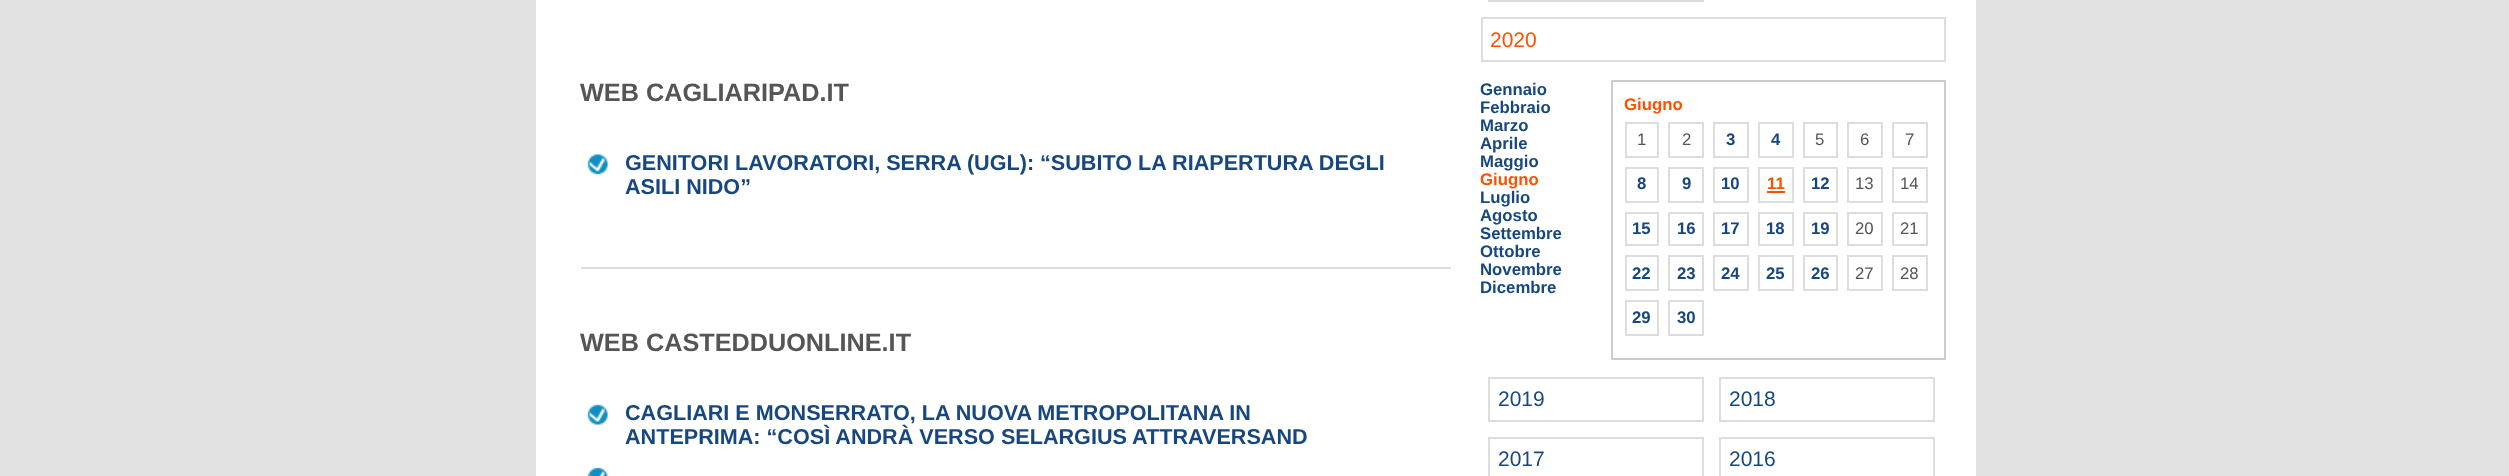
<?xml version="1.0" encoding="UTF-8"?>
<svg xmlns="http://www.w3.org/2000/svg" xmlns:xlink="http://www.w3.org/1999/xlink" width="2509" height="476">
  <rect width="100%" height="100%" fill="#e1e1e1" />
  <rect x="536" width="1440" height="476" fill="#ffffff" />
  <rect x="581" y="267" width="870" height="2" fill="#dddddd" />
  <image x="587" y="154" width="21" height="21" xlink:href="image1.png" />
  <image x="587" y="404" width="21" height="21" xlink:href="image2.png" />
  <image x="587" y="467" width="21" height="9" xlink:href="image3.png" />
  <rect x="1489" y="-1" width="214" height="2" fill="none" stroke="#dddddd" stroke-width="2" />
  <rect x="1482" y="18" width="463" height="43" fill="none" stroke="#dddddd" stroke-width="2" />
  <rect x="1612" y="81" width="333" height="278" fill="none" stroke="#cccccc" stroke-width="2" />
  <rect x="1626" y="123" width="32" height="34" fill="none" stroke="#dddddd" stroke-width="2" />
  <rect x="1669" y="123" width="34" height="34" fill="none" stroke="#dddddd" stroke-width="2" />
  <rect x="1714" y="123" width="34" height="34" fill="none" stroke="#dddddd" stroke-width="2" />
  <rect x="1759" y="123" width="34" height="34" fill="none" stroke="#dddddd" stroke-width="2" />
  <rect x="1804" y="123" width="33" height="34" fill="none" stroke="#dddddd" stroke-width="2" />
  <rect x="1848" y="123" width="34" height="34" fill="none" stroke="#dddddd" stroke-width="2" />
  <rect x="1893" y="123" width="34" height="34" fill="none" stroke="#dddddd" stroke-width="2" />
  <rect x="1626" y="168" width="32" height="34" fill="none" stroke="#dddddd" stroke-width="2" />
  <rect x="1669" y="168" width="34" height="34" fill="none" stroke="#dddddd" stroke-width="2" />
  <rect x="1714" y="168" width="34" height="34" fill="none" stroke="#dddddd" stroke-width="2" />
  <rect x="1759" y="168" width="34" height="34" fill="none" stroke="#dddddd" stroke-width="2" />
  <rect x="1767" y="191" width="18" height="2" fill="#ff5000" />
  <rect x="1804" y="168" width="33" height="34" fill="none" stroke="#dddddd" stroke-width="2" />
  <rect x="1848" y="168" width="34" height="34" fill="none" stroke="#dddddd" stroke-width="2" />
  <rect x="1893" y="168" width="34" height="34" fill="none" stroke="#dddddd" stroke-width="2" />
  <rect x="1626" y="213" width="32" height="32" fill="none" stroke="#dddddd" stroke-width="2" />
  <rect x="1669" y="213" width="34" height="32" fill="none" stroke="#dddddd" stroke-width="2" />
  <rect x="1714" y="213" width="34" height="32" fill="none" stroke="#dddddd" stroke-width="2" />
  <rect x="1759" y="213" width="34" height="32" fill="none" stroke="#dddddd" stroke-width="2" />
  <rect x="1804" y="213" width="33" height="32" fill="none" stroke="#dddddd" stroke-width="2" />
  <rect x="1848" y="213" width="34" height="32" fill="none" stroke="#dddddd" stroke-width="2" />
  <rect x="1893" y="213" width="34" height="32" fill="none" stroke="#dddddd" stroke-width="2" />
  <rect x="1626" y="256" width="32" height="34" fill="none" stroke="#dddddd" stroke-width="2" />
  <rect x="1669" y="256" width="34" height="34" fill="none" stroke="#dddddd" stroke-width="2" />
  <rect x="1714" y="256" width="34" height="34" fill="none" stroke="#dddddd" stroke-width="2" />
  <rect x="1759" y="256" width="34" height="34" fill="none" stroke="#dddddd" stroke-width="2" />
  <rect x="1804" y="256" width="33" height="34" fill="none" stroke="#dddddd" stroke-width="2" />
  <rect x="1848" y="256" width="34" height="34" fill="none" stroke="#dddddd" stroke-width="2" />
  <rect x="1893" y="256" width="34" height="34" fill="none" stroke="#dddddd" stroke-width="2" />
  <rect x="1626" y="301" width="32" height="34" fill="none" stroke="#dddddd" stroke-width="2" />
  <rect x="1669" y="301" width="34" height="34" fill="none" stroke="#dddddd" stroke-width="2" />
  <rect x="1489" y="378" width="214" height="43" fill="none" stroke="#dddddd" stroke-width="2" />
  <rect x="1720" y="378" width="214" height="43" fill="none" stroke="#dddddd" stroke-width="2" />
  <rect x="1489" y="438" width="214" height="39" fill="none" stroke="#dddddd" stroke-width="2" />
  <rect x="1720" y="438" width="214" height="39" fill="none" stroke="#dddddd" stroke-width="2" />
  <text x="580" y="101" style="font-family: Liberation Sans; font-size: 25.25px; font-weight: bold; fill: #555555">WEB CAGLIARIPAD.IT</text>
  <text x="625" y="170" style="font-family: Liberation Sans; font-size: 21.6px; font-weight: bold; fill: #164781">GENITORI LAVORATORI, SERRA (UGL): “SUBITO LA RIAPERTURA DEGLI</text>
  <text x="625" y="194" style="font-family: Liberation Sans; font-size: 21.6px; font-weight: bold; fill: #164781">ASILI NIDO”</text>
  <text x="580" y="351" style="font-family: Liberation Sans; font-size: 25.25px; font-weight: bold; fill: #555555">WEB CASTEDDUONLINE.IT</text>
  <text x="625" y="420" style="font-family: Liberation Sans; font-size: 21.6px; font-weight: bold; fill: #164781">CAGLIARI E MONSERRATO, LA NUOVA METROPOLITANA IN</text>
  <text x="625" y="444" style="font-family: Liberation Sans; font-size: 21.6px; font-weight: bold; fill: #164781">ANTEPRIMA: “COSÌ ANDRÀ VERSO SELARGIUS ATTRAVERSAND</text>
  <text x="1490" y="47" style="font-family: Liberation Sans; font-size: 21px; fill: #ff5000">2020</text>
  <text x="1480" y="95" style="font-family: Liberation Sans; font-size: 16.75px; font-weight: bold; fill: #164781">Gennaio</text>
  <text x="1480" y="113" style="font-family: Liberation Sans; font-size: 16.75px; font-weight: bold; fill: #164781">Febbraio</text>
  <text x="1480" y="131" style="font-family: Liberation Sans; font-size: 16.75px; font-weight: bold; fill: #164781">Marzo</text>
  <text x="1480" y="149" style="font-family: Liberation Sans; font-size: 16.75px; font-weight: bold; fill: #164781">Aprile</text>
  <text x="1480" y="167" style="font-family: Liberation Sans; font-size: 16.75px; font-weight: bold; fill: #164781">Maggio</text>
  <text x="1480" y="185" style="font-family: Liberation Sans; font-size: 16.75px; font-weight: bold; fill: #ff5000">Giugno</text>
  <text x="1480" y="203" style="font-family: Liberation Sans; font-size: 16.75px; font-weight: bold; fill: #164781">Luglio</text>
  <text x="1480" y="221" style="font-family: Liberation Sans; font-size: 16.75px; font-weight: bold; fill: #164781">Agosto</text>
  <text x="1480" y="239" style="font-family: Liberation Sans; font-size: 16.75px; font-weight: bold; fill: #164781">Settembre</text>
  <text x="1480" y="257" style="font-family: Liberation Sans; font-size: 16.75px; font-weight: bold; fill: #164781">Ottobre</text>
  <text x="1480" y="275" style="font-family: Liberation Sans; font-size: 16.75px; font-weight: bold; fill: #164781">Novembre</text>
  <text x="1480" y="293" style="font-family: Liberation Sans; font-size: 16.75px; font-weight: bold; fill: #164781">Dicembre</text>
  <text x="1624" y="110" style="font-family: Liberation Sans; font-size: 16.75px; font-weight: bold; fill: #ff5000">Giugno</text>
  <text x="1637" y="145" style="font-family: Liberation Sans; font-size: 16.75px; fill: #555555">1</text>
  <text x="1682" y="145" style="font-family: Liberation Sans; font-size: 16.75px; fill: #555555">2</text>
  <text x="1726" y="145" style="font-family: Liberation Sans; font-size: 16.75px; font-weight: bold; fill: #164781">3</text>
  <text x="1771" y="145" style="font-family: Liberation Sans; font-size: 16.75px; font-weight: bold; fill: #164781">4</text>
  <text x="1815" y="145" style="font-family: Liberation Sans; font-size: 16.75px; fill: #555555">5</text>
  <text x="1860" y="145" style="font-family: Liberation Sans; font-size: 16.75px; fill: #555555">6</text>
  <text x="1905" y="145" style="font-family: Liberation Sans; font-size: 16.75px; fill: #555555">7</text>
  <text x="1637" y="189" style="font-family: Liberation Sans; font-size: 16.75px; font-weight: bold; fill: #164781">8</text>
  <text x="1682" y="189" style="font-family: Liberation Sans; font-size: 16.75px; font-weight: bold; fill: #164781">9</text>
  <text x="1721" y="189" style="font-family: Liberation Sans; font-size: 16.75px; font-weight: bold; fill: #164781">10</text>
  <text x="1767" y="189" style="font-family: Liberation Sans; font-size: 16.75px; font-weight: bold; fill: #ff5000">11</text>
  <text x="1811" y="189" style="font-family: Liberation Sans; font-size: 16.75px; font-weight: bold; fill: #164781">12</text>
  <text x="1855" y="189" style="font-family: Liberation Sans; font-size: 16.75px; fill: #555555">13</text>
  <text x="1900" y="189" style="font-family: Liberation Sans; font-size: 16.75px; fill: #555555">14</text>
  <text x="1632" y="234" style="font-family: Liberation Sans; font-size: 16.75px; font-weight: bold; fill: #164781">15</text>
  <text x="1677" y="234" style="font-family: Liberation Sans; font-size: 16.75px; font-weight: bold; fill: #164781">16</text>
  <text x="1721" y="234" style="font-family: Liberation Sans; font-size: 16.75px; font-weight: bold; fill: #164781">17</text>
  <text x="1766" y="234" style="font-family: Liberation Sans; font-size: 16.75px; font-weight: bold; fill: #164781">18</text>
  <text x="1811" y="234" style="font-family: Liberation Sans; font-size: 16.75px; font-weight: bold; fill: #164781">19</text>
  <text x="1855" y="234" style="font-family: Liberation Sans; font-size: 16.75px; fill: #555555">20</text>
  <text x="1900" y="234" style="font-family: Liberation Sans; font-size: 16.75px; fill: #555555">21</text>
  <text x="1632" y="279" style="font-family: Liberation Sans; font-size: 16.75px; font-weight: bold; fill: #164781">22</text>
  <text x="1677" y="279" style="font-family: Liberation Sans; font-size: 16.75px; font-weight: bold; fill: #164781">23</text>
  <text x="1721" y="279" style="font-family: Liberation Sans; font-size: 16.75px; font-weight: bold; fill: #164781">24</text>
  <text x="1766" y="279" style="font-family: Liberation Sans; font-size: 16.75px; font-weight: bold; fill: #164781">25</text>
  <text x="1811" y="279" style="font-family: Liberation Sans; font-size: 16.75px; font-weight: bold; fill: #164781">26</text>
  <text x="1855" y="279" style="font-family: Liberation Sans; font-size: 16.75px; fill: #555555">27</text>
  <text x="1900" y="279" style="font-family: Liberation Sans; font-size: 16.75px; fill: #555555">28</text>
  <text x="1632" y="323" style="font-family: Liberation Sans; font-size: 16.75px; font-weight: bold; fill: #164781">29</text>
  <text x="1677" y="323" style="font-family: Liberation Sans; font-size: 16.75px; font-weight: bold; fill: #164781">30</text>
  <text x="1498" y="406" style="font-family: Liberation Sans; font-size: 21px; fill: #164781">2019</text>
  <text x="1729" y="406" style="font-family: Liberation Sans; font-size: 21px; fill: #164781">2018</text>
  <text x="1498" y="466" style="font-family: Liberation Sans; font-size: 21px; fill: #164781">2017</text>
  <text x="1729" y="466" style="font-family: Liberation Sans; font-size: 21px; fill: #164781">2016</text>
</svg>
